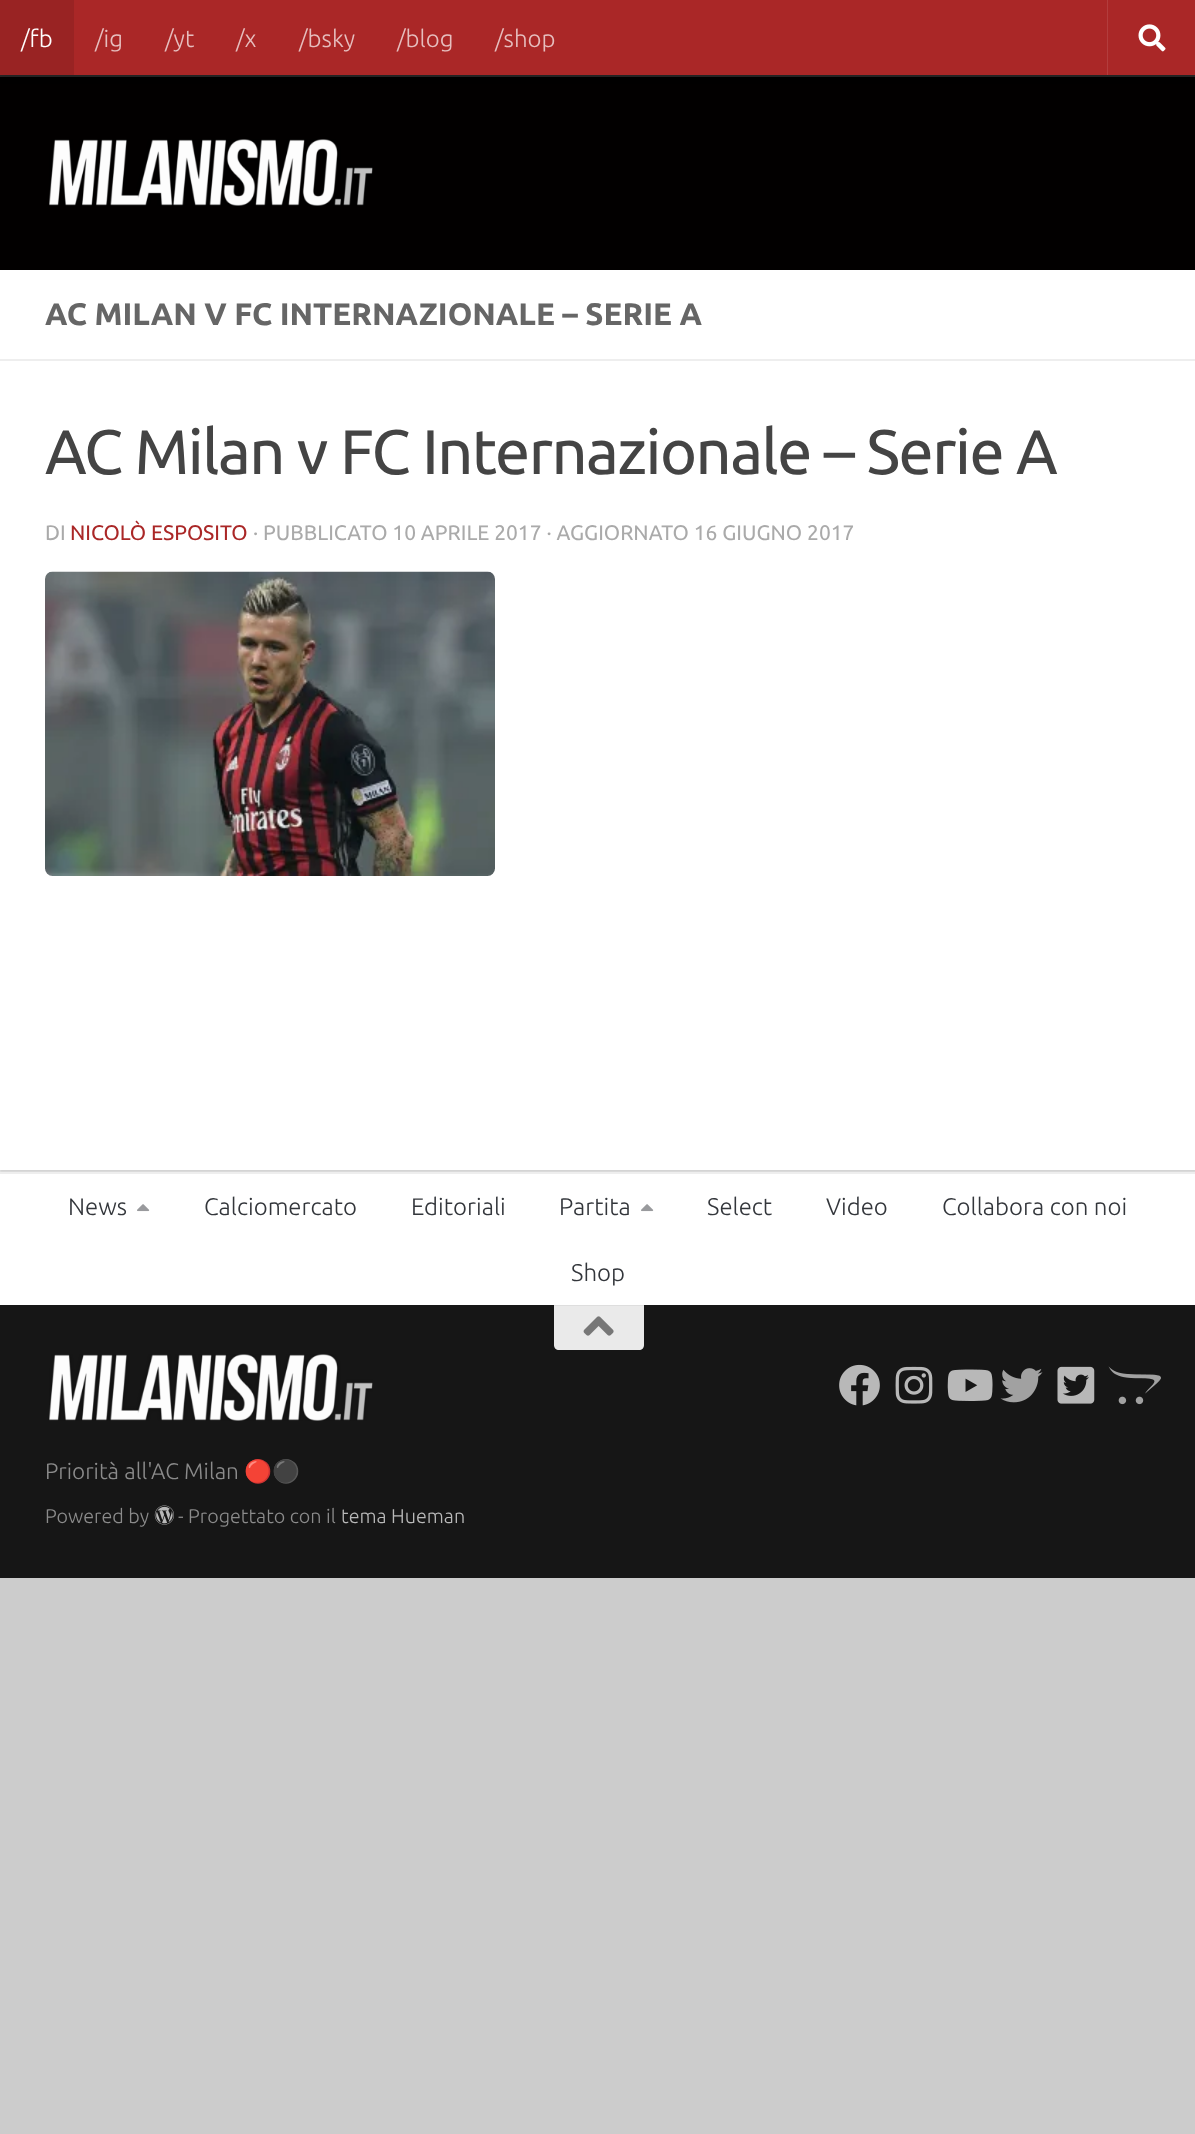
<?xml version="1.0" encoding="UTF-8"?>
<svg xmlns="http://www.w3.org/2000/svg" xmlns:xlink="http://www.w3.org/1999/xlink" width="1195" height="2134">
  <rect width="100%" height="100%" fill="#cccccc" />
  <rect y="1170" width="1195" height="2" fill="#eaeaea" />
  <rect y="272" width="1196" height="900" fill="#000000" fill-opacity="0.1" filter="blur(1px)" />
  <rect y="77" width="1195" height="193" fill="#020000" />
  <path d="M 0 75 v 2 h 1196 v -75 v 73 z" fill="#282626" />
  <rect width="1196" height="75" fill="#000000" fill-opacity="0.2" filter="blur(4px)" />
  <rect x="74" width="1121" height="75" fill="#aa2727" />
  <rect width="74" height="75" fill="#992323" />
  <rect x="1107" width="1" height="75" fill="#b33d3d" />
  <image x="1138" y="24" width="28" height="28" xlink:href="image1.png" />
  <image x="49" y="139" width="324" height="67" xlink:href="image2.png" />
  <rect y="270" width="1195" height="900" fill="#ffffff" />
  <rect y="359" width="1195" height="2" fill="#eeeeee" />
  <image x="45" y="571" width="450" height="305" xlink:href="image3.png" />
  <rect y="1174" width="1195" height="131" fill="#ffffff" />
  <rect y="1172" width="1195" height="2" fill="#eeeeee" />
  <image x="137" y="1204" width="13" height="8" xlink:href="image4.png" />
  <image x="641" y="1204" width="13" height="8" xlink:href="image4.png" />
  <rect y="1305" width="1195" height="273" fill="#161616" />
  <path d="M 554 1305 h 90 v 40 c 0 3 -2 5 -5 5 h -80 c -3 0 -5 -2 -5 -5 z" fill="#eaeaea" />
  <rect x="554" y="1305" width="90" height="1" fill="#dedede" />
  <image x="583" y="1316" width="31" height="20" xlink:href="image5.png" />
  <image x="839" y="1364" width="41" height="42" xlink:href="image6.png" />
  <image x="895" y="1366" width="38" height="38" xlink:href="image7.png" />
  <image x="947" y="1369" width="46" height="32" xlink:href="image8.png" />
  <image x="1000" y="1368" width="43" height="35" xlink:href="image9.png" />
  <image x="1057" y="1366" width="38" height="38" xlink:href="image10.png" />
  <image x="1108" y="1366" width="53" height="39" xlink:href="image11.png" />
  <image x="49" y="1354" width="324" height="67" xlink:href="image12.png" />
  <image x="154" y="1505" width="20" height="20" xlink:href="image13.png" />
  <text x="21" y="47" style="font-family: Ubuntu; font-size: 24px; font-weight: 300; fill: #ffffff">/fb</text>
  <text x="95" y="47" style="font-family: Ubuntu; font-size: 24px; font-weight: 300; fill: #e6bebe">/ig</text>
  <text x="165" y="47" style="font-family: Ubuntu; font-size: 24px; font-weight: 300; fill: #e6bebe">/yt</text>
  <text x="236" y="47" style="font-family: Ubuntu; font-size: 24px; font-weight: 300; fill: #e6bebe">/x</text>
  <text x="299" y="47" style="font-family: Ubuntu; font-size: 24px; font-weight: 300; fill: #e6bebe">/bsky</text>
  <text x="397" y="47" style="font-family: Ubuntu; font-size: 24px; font-weight: 300; fill: #e6bebe">/blog</text>
  <text x="495" y="47" style="font-family: Ubuntu; font-size: 24px; font-weight: 300; fill: #e6bebe">/shop</text>
  <text x="45" y="325" style="font-family: Ubuntu; font-size: 31.2px; font-weight: bold; fill: #666666">AC MILAN V FC INTERNAZIONALE – SERIE A</text>
  <text x="45" y="474" style="font-family: Ubuntu; font-size: 62.9px; letter-spacing: -1.5px; fill: #444444">AC Milan v FC Internazionale – Serie A</text>
  <text x="45" y="540" style="font-family: Ubuntu; font-size: 21px; fill: #aaaaaa">DI</text>
  <text x="70" y="540" style="font-family: Ubuntu; font-size: 21px; fill: #aa2727">NICOLÒ ESPOSITO</text>
  <text x="253" y="540" style="font-family: Ubuntu; font-size: 21px; fill: #aaaaaa">· PUBBLICATO 10 APRILE 2017 · AGGIORNATO 16 GIUGNO 2017</text>
  <text x="68" y="1215" style="font-family: Ubuntu; font-size: 24px; font-weight: 300; fill: #33363b">News</text>
  <text x="204" y="1215" style="font-family: Ubuntu; font-size: 24px; font-weight: 300; fill: #33363b">Calciomercato</text>
  <text x="411" y="1215" style="font-family: Ubuntu; font-size: 24px; font-weight: 300; fill: #33363b">Editoriali</text>
  <text x="559" y="1215" style="font-family: Ubuntu; font-size: 24px; font-weight: 300; fill: #33363b">Partita</text>
  <text x="707" y="1215" style="font-family: Ubuntu; font-size: 24px; font-weight: 300; fill: #33363b">Select</text>
  <text x="826" y="1215" style="font-family: Ubuntu; font-size: 24px; font-weight: 300; fill: #33363b">Video</text>
  <text x="942" y="1215" style="font-family: Ubuntu; font-size: 24px; font-weight: 300; fill: #33363b">Collabora con noi</text>
  <text x="571" y="1281" style="font-family: Ubuntu; font-size: 24px; font-weight: 300; fill: #33363b">Shop</text>
  <text x="45" y="1479" style="font-family: Ubuntu; font-size: 22.5px; font-weight: 300; fill: #8b8b8b">Priorità all'AC Milan</text>
  <text x="244" y="1479" style="font-family: Noto Color Emoji; font-size: 22.5px; fill: #8b8b8b">🔴⚫</text>
  <text x="45" y="1523" style="font-family: Ubuntu; font-size: 19.75px; font-weight: 300; fill: #8b8b8b">Powered by</text>
  <text x="178" y="1523" style="font-family: Ubuntu; font-size: 19.75px; font-weight: 300; fill: #8b8b8b">- Progettato con il</text>
  <text x="341" y="1523" style="font-family: Ubuntu; font-size: 19.75px; font-weight: 300; fill: #b9b9b9">tema Hueman</text>
</svg>
